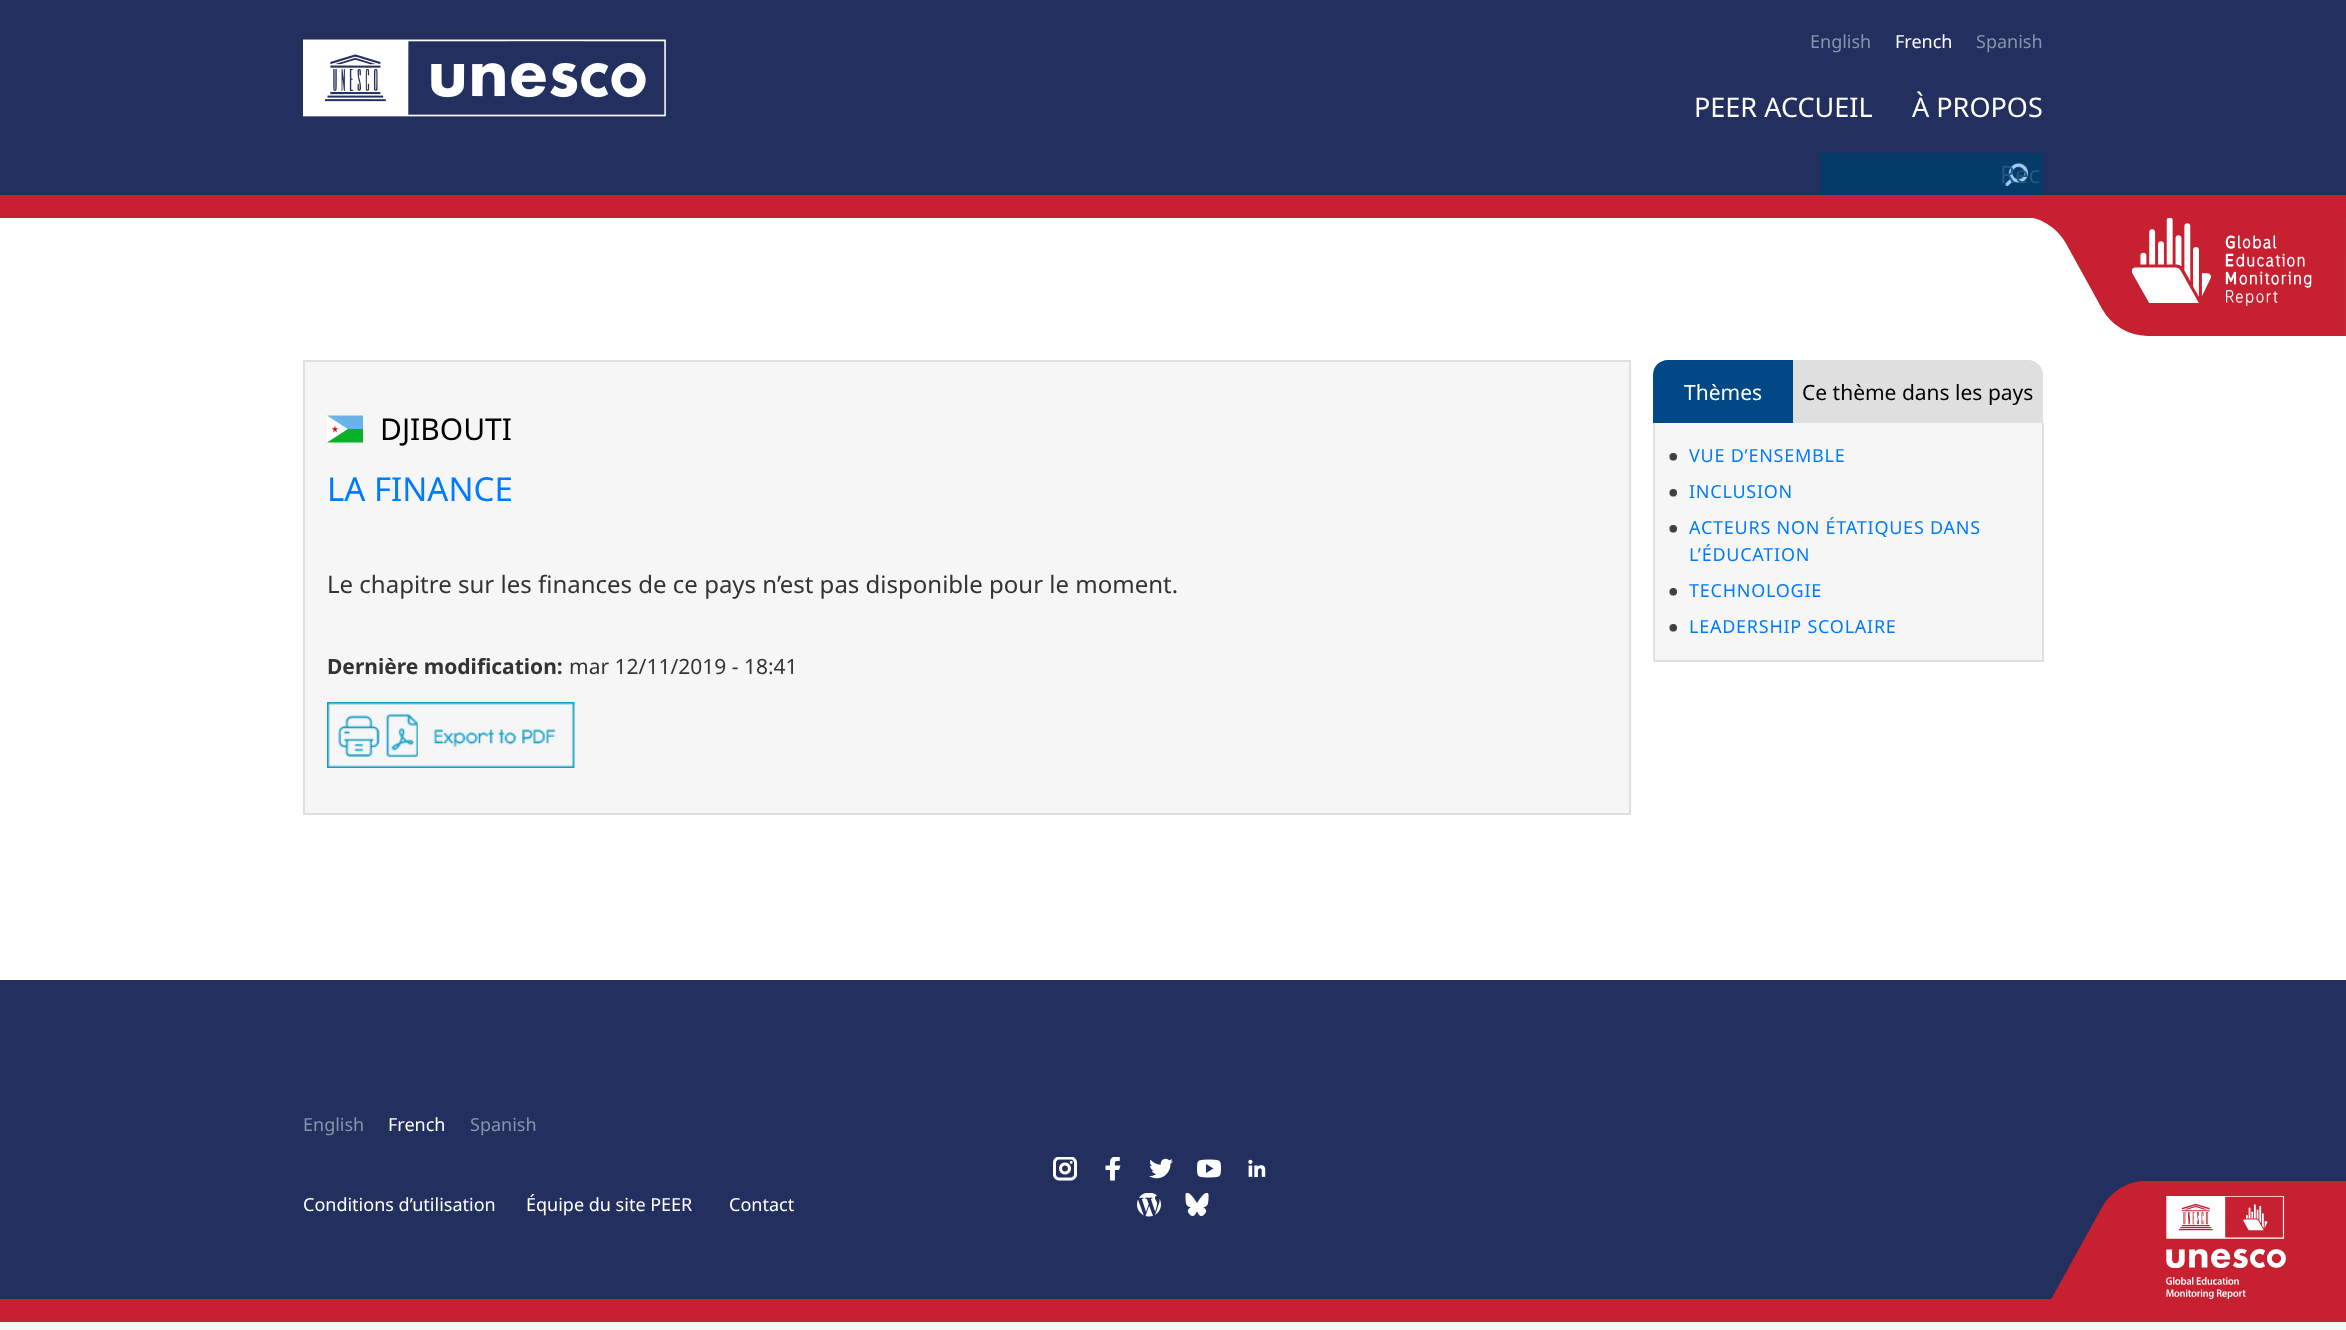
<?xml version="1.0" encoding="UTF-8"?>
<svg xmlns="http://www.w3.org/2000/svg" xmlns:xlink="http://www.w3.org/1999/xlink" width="2346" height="1330">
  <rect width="100%" height="100%" fill="#f5f5f5" />
  <rect y="218" width="2346" height="762" fill="#ffffff" />
  <rect width="2346" height="195" fill="#23305f" />
  <image x="303" y="39" width="363" height="78" xlink:href="image1.png" />
  <rect x="1820" y="153" width="223" height="42" fill="#043b69" />
  <image x="2005" y="163" width="23" height="23" xlink:href="image2.png" />
  <image x="2034" y="218" width="312" height="118" xlink:href="image3.png" />
  <rect y="195" width="2346" height="23" fill="#c72031" />
  <rect x="304" y="361" width="1326" height="453" fill="#f6f6f6" stroke="#dfdfdf" stroke-width="2" />
  <image x="327" y="415" width="36" height="28" xlink:href="image4.png" />
  <image x="327" y="702" width="248" height="66" xlink:href="image5.png" />
  <path d="M 1668 360 h 125 v 63 h -140 v -48 c 0 -8.5 6.5 -15 15 -15 z" fill="#004986" />
  <path d="M 1793 360 h 235 c 8.5 0 15 6.5 15 15 v 48 h -250 z" fill="#dfdfdf" />
  <rect x="1655" y="423" width="387" height="237" fill="#f6f6f6" />
  <rect x="2042" y="423" width="2" height="239" fill="#dfdfdf" />
  <rect x="1653" y="660" width="390" height="2" fill="#dfdfdf" />
  <rect x="1653" y="423" width="2" height="239" fill="#dfdfdf" />
  <image x="1669" y="453" width="8" height="8" xlink:href="image6.png" />
  <image x="1669" y="489" width="8" height="8" xlink:href="image6.png" />
  <image x="1669" y="525" width="8" height="8" xlink:href="image6.png" />
  <image x="1669" y="588" width="8" height="8" xlink:href="image6.png" />
  <image x="1669" y="624" width="8" height="8" xlink:href="image6.png" />
  <rect y="980" width="2346" height="319" fill="#23305f" />
  <image x="1053" y="1157" width="24" height="24" xlink:href="image7.png" />
  <image x="1105" y="1157" width="16" height="24" xlink:href="image8.png" />
  <image x="1149" y="1158" width="24" height="21" xlink:href="image9.png" />
  <image x="1197" y="1159" width="24" height="19" xlink:href="image10.png" />
  <image x="1248" y="1159" width="18" height="19" xlink:href="image11.png" />
  <image x="1137" y="1193" width="24" height="24" xlink:href="image12.png" />
  <image x="1185" y="1193" width="24" height="24" xlink:href="image13.png" />
  <image x="2051" y="1181" width="295" height="118" xlink:href="image14.png" />
  <rect y="1299" width="2346" height="23" fill="#c72031" />
  <text x="1810" y="48" style="font-family: Noto Sans; font-size: 18px; fill: #8b92ab">English</text>
  <text x="1895" y="48" style="font-family: Noto Sans; font-size: 18px; fill: #ffffff">French</text>
  <text x="1976" y="48" style="font-family: Noto Sans; font-size: 18px; fill: #8b92ab">Spanish</text>
  <text x="1694" y="117" style="font-family: Noto Sans; font-size: 27px; fill: #ffffff">PEER ACCUEIL</text>
  <text x="1912" y="117" style="font-family: Noto Sans; font-size: 27px; fill: #ffffff">À PROPOS</text>
  <text x="2000" y="183" style="font-family: Noto Sans; font-size: 24px; fill: #235783">Rec</text>
  <text x="380" y="440" style="font-family: Noto Sans; font-size: 30px; fill: #000000">DJIBOUTI</text>
  <text x="327" y="501" style="font-family: Noto Sans; font-size: 33px; fill: #007bff">LA FINANCE</text>
  <text x="327" y="593" style="font-family: Noto Sans; font-size: 24px; fill: #333333">Le chapitre sur les finances de ce pays n’est pas disponible pour le moment.</text>
  <text x="327" y="674" style="font-family: Noto Sans; font-size: 21px; font-weight: bold; fill: #333333">Dernière modification:</text>
  <text x="569" y="674" style="font-family: Noto Sans; font-size: 21px; fill: #333333">mar 12/11/2019 - 18:41</text>
  <text x="1684" y="400" style="font-family: Noto Sans; font-size: 21px; fill: #ffffff">Thèmes</text>
  <text x="1802" y="400" style="font-family: Noto Sans; font-size: 21px; fill: #000000">Ce thème dans les pays</text>
  <text x="1689" y="462" style="font-family: Noto Sans; font-size: 18px; letter-spacing: 0.75px; fill: #007bff">VUE D’ENSEMBLE</text>
  <text x="1689" y="498" style="font-family: Noto Sans; font-size: 18px; letter-spacing: 0.75px; fill: #007bff">INCLUSION</text>
  <text x="1689" y="534" style="font-family: Noto Sans; font-size: 18px; letter-spacing: 0.75px; fill: #007bff">ACTEURS NON ÉTATIQUES DANS</text>
  <text x="1689" y="561" style="font-family: Noto Sans; font-size: 18px; letter-spacing: 0.75px; fill: #007bff">L’ÉDUCATION</text>
  <text x="1689" y="597" style="font-family: Noto Sans; font-size: 18px; letter-spacing: 0.75px; fill: #007bff">TECHNOLOGIE</text>
  <text x="1689" y="633" style="font-family: Noto Sans; font-size: 18px; letter-spacing: 0.75px; fill: #007bff">LEADERSHIP SCOLAIRE</text>
  <text x="303" y="1131" style="font-family: Noto Sans; font-size: 18px; fill: #8b92ab">English</text>
  <text x="388" y="1131" style="font-family: Noto Sans; font-size: 18px; fill: #ffffff">French</text>
  <text x="470" y="1131" style="font-family: Noto Sans; font-size: 18px; fill: #8b92ab">Spanish</text>
  <text x="303" y="1211" style="font-family: Noto Sans; font-size: 18px; fill: #ffffff">Conditions d’utilisation</text>
  <text x="526" y="1211" style="font-family: Noto Sans; font-size: 18px; fill: #ffffff">Équipe du site PEER</text>
  <text x="729" y="1211" style="font-family: Noto Sans; font-size: 18px; fill: #ffffff">Contact</text>
</svg>
